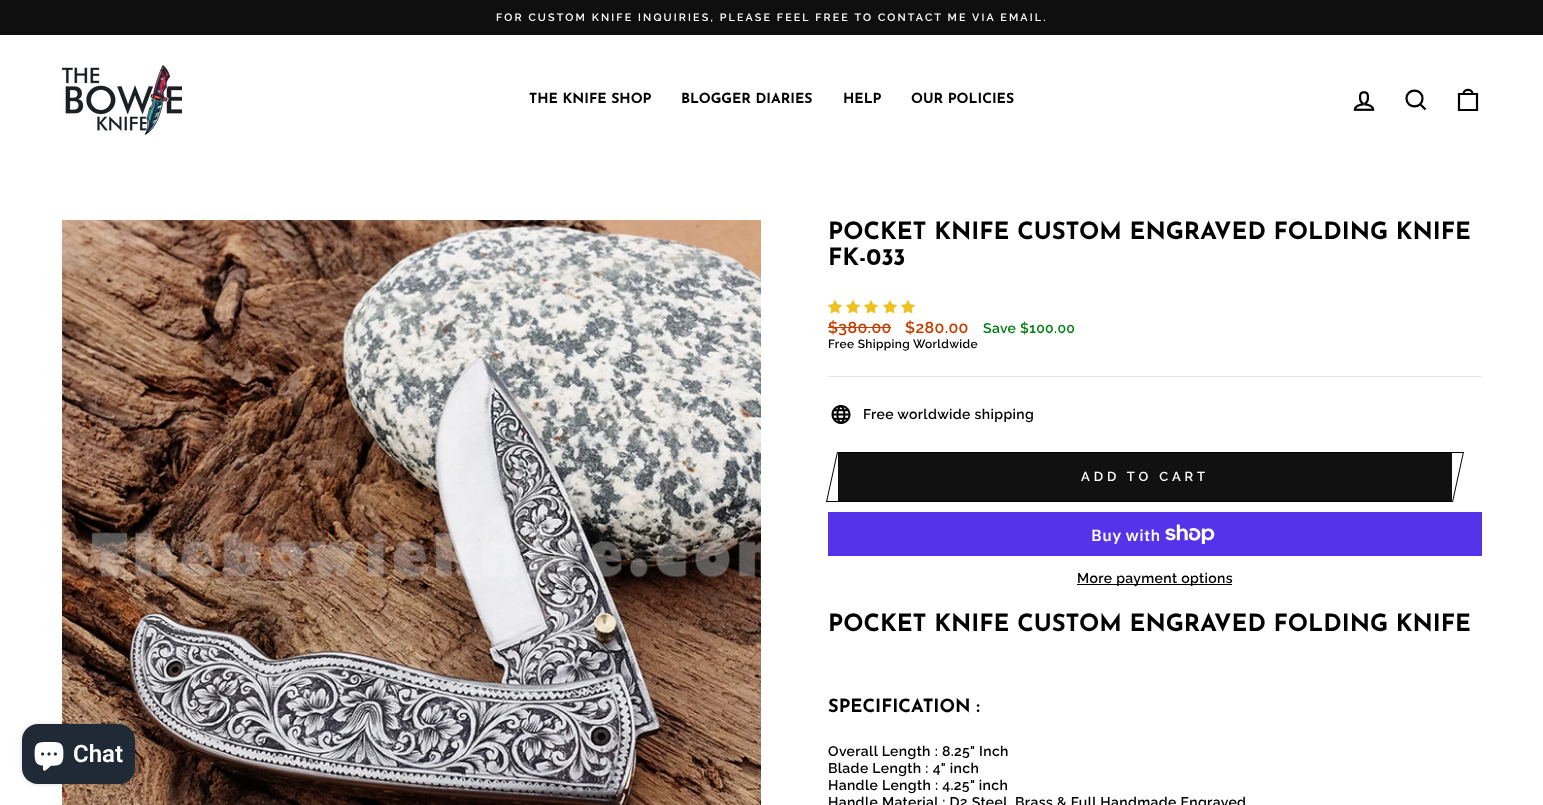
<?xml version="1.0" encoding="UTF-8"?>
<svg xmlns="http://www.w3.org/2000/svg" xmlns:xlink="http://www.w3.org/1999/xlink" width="1543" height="805">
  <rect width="100%" height="100%" fill="#ffffff" />
  <image x="62" y="220" width="699" height="585" xlink:href="image4.png" />
  <rect x="22" y="724" width="113" height="60" rx="16" fill="#000000" fill-opacity="0.15" filter="blur(2.5px)" />
  <rect x="22" y="724" width="113" height="60" rx="16" fill="#202a36" />
  <image x="34" y="742" width="30" height="29" xlink:href="image1.png" />
  <rect width="1543" height="35" fill="#0f0f0f" />
  <image x="62" y="65" width="120" height="70" xlink:href="image2.png" />
  <image x="1353" y="91" width="22" height="20" xlink:href="image3.png" />
  <path d="M 1422.5 98.5 c 0 10.5 -16 10.5 -16 0 c 0 -10.5 16 -10.5 16 0 z m 3 11 l -5 -5" fill="none" stroke="#000000" stroke-width="2.2" />
  <path d="M 1459 94 h 18 v 16 h -18 z m 4.5 0 c 0 -5.5 9 -5.5 9 0" fill="none" stroke="#000000" stroke-width="2.2" />
  <image x="828" y="300" width="14" height="14" xlink:href="image5.png" />
  <image x="846" y="300" width="14" height="14" xlink:href="image5.png" />
  <image x="864" y="300" width="14" height="14" xlink:href="image5.png" />
  <image x="883" y="300" width="14" height="14" xlink:href="image5.png" />
  <image x="901" y="300" width="14" height="14" xlink:href="image5.png" />
  <rect x="828" y="327" width="63" height="1" fill="#c23d00" />
  <rect x="828" y="376" width="654" height="1" fill="#e6e6e6" />
  <image x="831" y="405" width="20" height="19" xlink:href="image6.png" />
  <rect x="838" y="453" width="614" height="48" fill="#111111" />
  <rect x="838" y="452" width="626" height="1" fill="#000000" />
  <rect x="838" y="501" width="614" height="1" fill="#000000" />
  <path d="M 826.5 501 h 20 l -0.5 1 h -20 z" fill="#000000" />
  <path d="M 837 452 h 1 l -11 50 h -1 z" fill="#000000" />
  <path d="M 1463 452 h 1 l -11 50 h -1 z" fill="#000000" />
  <rect x="828" y="512" width="654" height="44" fill="#5433eb" />
  <image x="1165" y="524" width="50" height="20" xlink:href="image7.png" />
  <rect x="1077" y="584" width="155" height="1" fill="#000000" />
  <text x="73" y="762" style="font-family: Roboto; font-size: 24px; font-weight: 600; fill: #ffffff">Chat</text>
  <text x="496" y="21" style="font-family: Raleway; font-size: 10.7px; font-weight: 600; letter-spacing: 2.15px; fill: #ffffff">FOR CUSTOM KNIFE INQUIRIES, PLEASE FEEL FREE TO CONTACT ME VIA EMAIL.</text>
  <text x="529" y="103" style="font-family: Josefin Sans; font-size: 14px; font-weight: bold; fill: #000000">THE KNIFE SHOP</text>
  <text x="681" y="103" style="font-family: Josefin Sans; font-size: 14px; font-weight: bold; fill: #000000">BLOGGER DIARIES</text>
  <text x="843" y="103" style="font-family: Josefin Sans; font-size: 14px; font-weight: bold; fill: #000000">HELP</text>
  <text x="911" y="103" style="font-family: Josefin Sans; font-size: 14px; font-weight: bold; fill: #000000">OUR POLICIES</text>
  <text x="828" y="239" style="font-family: Josefin Sans; font-size: 23.8px; font-weight: bold; fill: #000000">POCKET KNIFE CUSTOM ENGRAVED FOLDING KNIFE</text>
  <text x="828" y="265" style="font-family: Josefin Sans; font-size: 23.8px; font-weight: bold; fill: #000000">FK-033</text>
  <text x="828" y="333" style="font-family: Raleway; font-size: 16px; font-weight: 600; letter-spacing: 0.35px; fill: #c23d00">$380.00</text>
  <text x="905" y="333" style="font-family: Raleway; font-size: 16px; font-weight: 600; letter-spacing: 0.35px; fill: #c23d00">$280.00</text>
  <text x="983" y="333" style="font-family: Raleway; font-size: 14px; font-weight: 600; letter-spacing: 0.35px; fill: #027e10">Save $100.00</text>
  <text x="828" y="348" style="font-family: Raleway; font-size: 11.9px; font-weight: 600; letter-spacing: 0.35px; fill: #000000">Free Shipping Worldwide</text>
  <text x="863" y="419" style="font-family: Raleway; font-size: 14px; font-weight: 600; letter-spacing: 0.35px; fill: #000000">Free worldwide shipping</text>
  <text x="1081" y="481" style="font-family: Raleway; font-size: 13px; font-weight: 600; letter-spacing: 3.9px; fill: #ffffff">ADD TO CART</text>
  <text x="1091" y="541" style="font-family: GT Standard; font-size: 16px; font-weight: 600; letter-spacing: 0.35px; fill: #ffffff">Buy with</text>
  <text x="1077" y="583" style="font-family: Raleway; font-size: 14px; font-weight: 600; letter-spacing: 0.35px; fill: #000000">More payment options</text>
  <text x="828" y="631" style="font-family: Josefin Sans; font-size: 23.8px; font-weight: bold; fill: #000000">POCKET KNIFE CUSTOM ENGRAVED FOLDING KNIFE</text>
  <text x="828" y="712" style="font-family: Josefin Sans; font-size: 18.25px; font-weight: bold; fill: #000000">SPECIFICATION :</text>
  <text x="828" y="756" style="font-family: Raleway; font-size: 14px; font-weight: 600; letter-spacing: 0.35px; fill: #000000">Overall Length : 8.25" Inch</text>
  <text x="828" y="773" style="font-family: Raleway; font-size: 14px; font-weight: 600; letter-spacing: 0.35px; fill: #000000">Blade Length : 4" inch</text>
  <text x="828" y="790" style="font-family: Raleway; font-size: 14px; font-weight: 600; letter-spacing: 0.35px; fill: #000000">Handle Length : 4.25" inch</text>
  <text x="828" y="807" style="font-family: Raleway; font-size: 14px; font-weight: 600; letter-spacing: 0.35px; fill: #000000">Handle Material : D2 Steel, Brass &amp; Full Handmade Engraved</text>
</svg>
